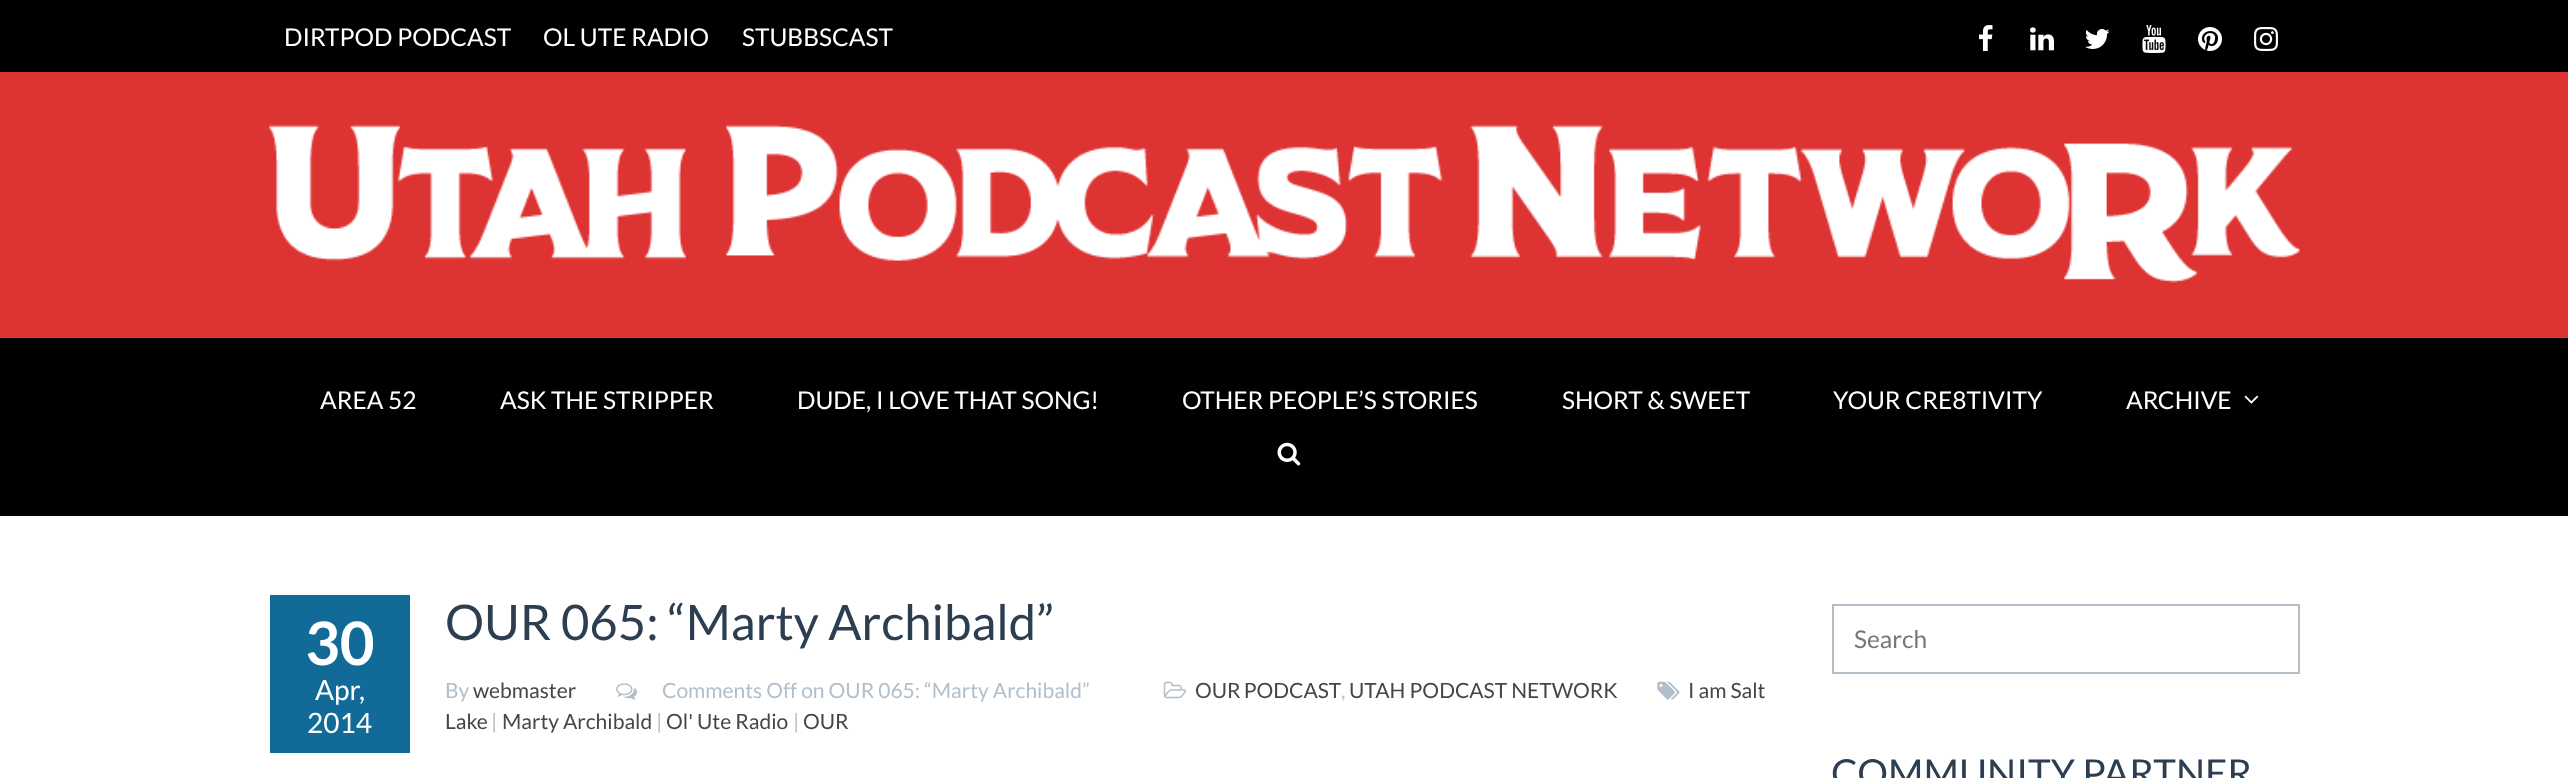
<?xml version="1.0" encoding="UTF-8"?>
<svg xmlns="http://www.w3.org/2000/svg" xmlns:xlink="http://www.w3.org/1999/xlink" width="2568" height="778">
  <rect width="100%" height="100%" fill="#ffffff" />
  <rect width="2568" height="72" fill="#000000" />
  <image x="1979" y="25" width="14" height="26" xlink:href="image1.png" />
  <image x="2030" y="27" width="24" height="24" xlink:href="image2.png" />
  <image x="2085" y="29" width="25" height="20" xlink:href="image3.png" />
  <image x="2142" y="25" width="24" height="28" xlink:href="image4.png" />
  <image x="2198" y="27" width="24" height="24" xlink:href="image5.png" />
  <image x="2254" y="27" width="24" height="24" xlink:href="image6.png" />
  <rect y="72" width="2568" height="266" fill="#dd3333" />
  <image x="269" y="124" width="2031" height="159" xlink:href="image7.png" />
  <rect y="338" width="2568" height="178" fill="#000000" />
  <image x="2244" y="395" width="15" height="9" xlink:href="image8.png" />
  <image x="1277" y="442" width="24" height="24" xlink:href="image9.png" />
  <rect x="270" y="595" width="140" height="158" fill="#116a97" />
  <image x="616" y="683" width="21" height="17" xlink:href="image10.png" />
  <image x="1657" y="681" width="23" height="19" xlink:href="image11.png" />
  <image x="1163" y="681" width="24" height="18" xlink:href="image12.png" />
  <rect x="1833" y="605" width="466" height="68" fill="none" stroke="#b2bfca" stroke-width="2" />
  <text x="284" y="46" style="font-family: Lato; font-size: 24.5px; fill: #ffffff">DIRTPOD PODCAST</text>
  <text x="543" y="46" style="font-family: Lato; font-size: 24.5px; fill: #ffffff">OL UTE RADIO</text>
  <text x="742" y="46" style="font-family: Lato; font-size: 24.5px; fill: #ffffff">STUBBSCAST</text>
  <text x="320" y="409" style="font-family: Lato; font-size: 24.5px; fill: #ffffff">AREA 52</text>
  <text x="500" y="409" style="font-family: Lato; font-size: 24.5px; fill: #ffffff">ASK THE STRIPPER</text>
  <text x="797" y="409" style="font-family: Lato; font-size: 24.5px; fill: #ffffff">DUDE, I LOVE THAT SONG!</text>
  <text x="1182" y="409" style="font-family: Lato; font-size: 24.5px; fill: #ffffff">OTHER PEOPLE’S STORIES</text>
  <text x="1562" y="409" style="font-family: Lato; font-size: 24.5px; fill: #ffffff">SHORT &amp; SWEET</text>
  <text x="1833" y="409" style="font-family: Lato; font-size: 24.5px; fill: #ffffff">YOUR CRE8TIVITY</text>
  <text x="2126" y="409" style="font-family: Lato; font-size: 24.5px; fill: #ffffff">ARCHIVE</text>
  <text x="305" y="665" style="font-family: Lato; font-size: 60px; font-weight: bold; fill: #ffffff">30</text>
  <text x="315" y="700" style="font-family: Lato; font-size: 28px; fill: #ffffff">Apr,</text>
  <text x="307" y="733" style="font-family: Lato; font-size: 28px; fill: #ffffff">2014</text>
  <text x="445" y="640" style="font-family: Lato; font-size: 49px; fill: #2c3e50">OUR 065: “Marty Archibald”</text>
  <text x="445" y="698" style="font-family: Lato; font-size: 21px; fill: #b2bfca">By</text>
  <text x="662" y="698" style="font-family: Lato; font-size: 21px; fill: #b2bfca">Comments Off on OUR 065: “Marty Archibald”</text>
  <text x="1688" y="698" style="font-family: Lato; font-size: 21px; fill: #464646">I am Salt</text>
  <text x="445" y="729" style="font-family: Lato; font-size: 21px; fill: #464646">Lake</text>
  <text x="491" y="729" style="font-family: Lato; font-size: 21px; fill: #b2bfca">|</text>
  <text x="502" y="729" style="font-family: Lato; font-size: 21px; fill: #464646">Marty Archibald</text>
  <text x="656" y="729" style="font-family: Lato; font-size: 21px; fill: #b2bfca">|</text>
  <text x="666" y="729" style="font-family: Lato; font-size: 21px; fill: #464646">Ol' Ute Radio</text>
  <text x="793" y="729" style="font-family: Lato; font-size: 21px; fill: #b2bfca">|</text>
  <text x="803" y="729" style="font-family: Lato; font-size: 21px; fill: #464646">OUR</text>
  <text x="473" y="698" style="font-family: Lato; font-size: 21px; fill: #464646">webmaster</text>
  <text x="1195" y="698" word-spacing="-1" style="font-family: Lato; font-size: 21px; fill: #464646">OUR PODCAST</text>
  <text x="1341" y="698" style="font-family: Lato; font-size: 21px; fill: #b2bfca">,</text>
  <text x="1349" y="698" style="font-family: Lato; font-size: 21px; fill: #464646">UTAH PODCAST NETWORK</text>
  <text x="1854" y="648" style="font-family: Lato; font-size: 24.5px; fill: #777777">Search</text>
  <text x="1831" y="787" style="font-family: Lato; font-size: 38.5px; fill: #2c3e50">COMMUNITY PARTNER</text>
</svg>
